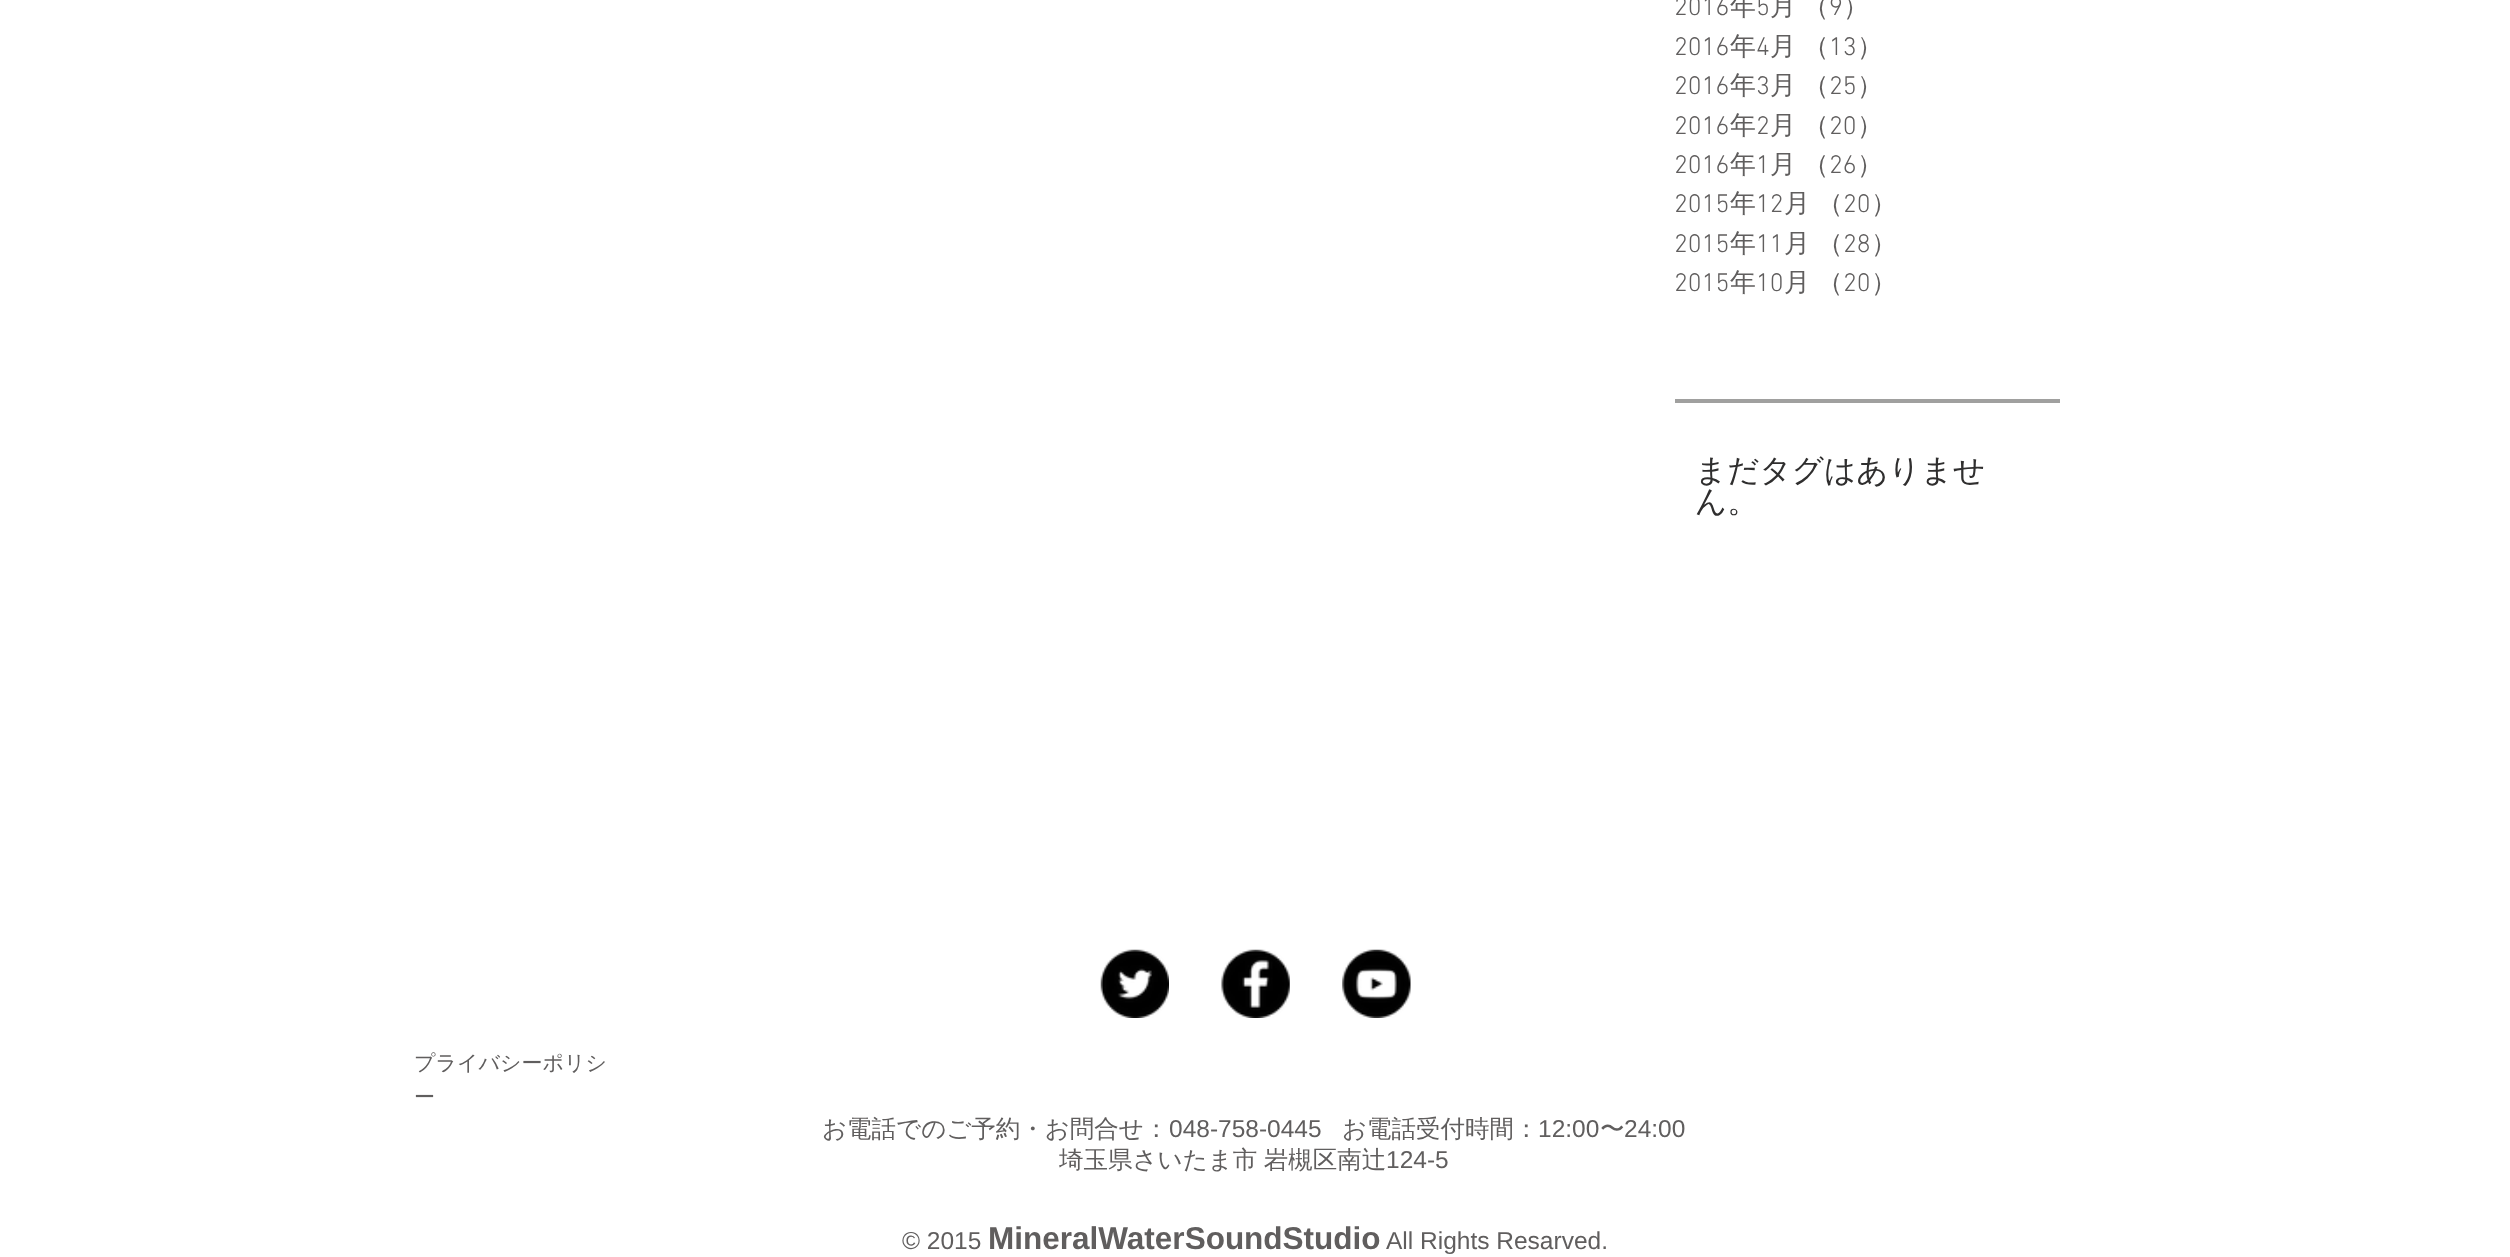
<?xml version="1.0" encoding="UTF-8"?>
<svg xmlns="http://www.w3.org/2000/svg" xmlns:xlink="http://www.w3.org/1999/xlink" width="2510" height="1257">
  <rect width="100%" height="100%" fill="#ffffff" />
  <rect x="1675" y="399" width="385" height="4" fill="#a0a09f" />
  <image x="1100" y="949" width="69" height="69" xlink:href="image1.png" />
  <image x="1221" y="949" width="69" height="69" xlink:href="image2.png" />
  <image x="1342" y="949" width="69" height="69" xlink:href="image3.png" />
  <text x="1674" y="15" style="font-family: 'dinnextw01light'; font-size: 26px; font-weight: 300; fill: #605e5e">2016</text>
  <text x="1730" y="15" style="font-family: WenQuanYi Zen Hei; font-size: 26px; font-weight: 500; fill: #605e5e">年</text>
  <text x="1756" y="15" style="font-family: 'dinnextw01light'; font-size: 26px; font-weight: 300; fill: #605e5e">5</text>
  <text x="1770" y="15" style="font-family: WenQuanYi Zen Hei; font-size: 26px; font-weight: 500; fill: #605e5e">月</text>
  <text x="1803" y="15" style="font-family: WenQuanYi Zen Hei; font-size: 26px; font-weight: 500; fill: #605e5e">（</text>
  <text x="1829" y="15" style="font-family: 'dinnextw01light'; font-size: 26px; font-weight: 300; fill: #605e5e">9</text>
  <text x="1843" y="15" style="font-family: WenQuanYi Zen Hei; font-size: 26px; font-weight: 500; fill: #605e5e">）</text>
  <text x="1674" y="55" style="font-family: 'dinnextw01light'; font-size: 26px; font-weight: 300; fill: #605e5e">2016</text>
  <text x="1730" y="55" style="font-family: WenQuanYi Zen Hei; font-size: 26px; font-weight: 500; fill: #605e5e">年</text>
  <text x="1756" y="55" style="font-family: 'dinnextw01light'; font-size: 26px; font-weight: 300; fill: #605e5e">4</text>
  <text x="1770" y="55" style="font-family: WenQuanYi Zen Hei; font-size: 26px; font-weight: 500; fill: #605e5e">月</text>
  <text x="1803" y="55" style="font-family: WenQuanYi Zen Hei; font-size: 26px; font-weight: 500; fill: #605e5e">（</text>
  <text x="1829" y="55" style="font-family: 'dinnextw01light'; font-size: 26px; font-weight: 300; fill: #605e5e">13</text>
  <text x="1857" y="55" style="font-family: WenQuanYi Zen Hei; font-size: 26px; font-weight: 500; fill: #605e5e">）</text>
  <text x="1674" y="94" style="font-family: 'dinnextw01light'; font-size: 26px; font-weight: 300; fill: #605e5e">2016</text>
  <text x="1730" y="94" style="font-family: WenQuanYi Zen Hei; font-size: 26px; font-weight: 500; fill: #605e5e">年</text>
  <text x="1756" y="94" style="font-family: 'dinnextw01light'; font-size: 26px; font-weight: 300; fill: #605e5e">3</text>
  <text x="1770" y="94" style="font-family: WenQuanYi Zen Hei; font-size: 26px; font-weight: 500; fill: #605e5e">月</text>
  <text x="1803" y="94" style="font-family: WenQuanYi Zen Hei; font-size: 26px; font-weight: 500; fill: #605e5e">（</text>
  <text x="1829" y="94" style="font-family: 'dinnextw01light'; font-size: 26px; font-weight: 300; fill: #605e5e">25</text>
  <text x="1857" y="94" style="font-family: WenQuanYi Zen Hei; font-size: 26px; font-weight: 500; fill: #605e5e">）</text>
  <text x="1674" y="134" style="font-family: 'dinnextw01light'; font-size: 26px; font-weight: 300; fill: #605e5e">2016</text>
  <text x="1730" y="134" style="font-family: WenQuanYi Zen Hei; font-size: 26px; font-weight: 500; fill: #605e5e">年</text>
  <text x="1756" y="134" style="font-family: 'dinnextw01light'; font-size: 26px; font-weight: 300; fill: #605e5e">2</text>
  <text x="1770" y="134" style="font-family: WenQuanYi Zen Hei; font-size: 26px; font-weight: 500; fill: #605e5e">月</text>
  <text x="1803" y="134" style="font-family: WenQuanYi Zen Hei; font-size: 26px; font-weight: 500; fill: #605e5e">（</text>
  <text x="1829" y="134" style="font-family: 'dinnextw01light'; font-size: 26px; font-weight: 300; fill: #605e5e">20</text>
  <text x="1857" y="134" style="font-family: WenQuanYi Zen Hei; font-size: 26px; font-weight: 500; fill: #605e5e">）</text>
  <text x="1674" y="173" style="font-family: 'dinnextw01light'; font-size: 26px; font-weight: 300; fill: #605e5e">2016</text>
  <text x="1730" y="173" style="font-family: WenQuanYi Zen Hei; font-size: 26px; font-weight: 500; fill: #605e5e">年</text>
  <text x="1756" y="173" style="font-family: 'dinnextw01light'; font-size: 26px; font-weight: 300; fill: #605e5e">1</text>
  <text x="1770" y="173" style="font-family: WenQuanYi Zen Hei; font-size: 26px; font-weight: 500; fill: #605e5e">月</text>
  <text x="1803" y="173" style="font-family: WenQuanYi Zen Hei; font-size: 26px; font-weight: 500; fill: #605e5e">（</text>
  <text x="1829" y="173" style="font-family: 'dinnextw01light'; font-size: 26px; font-weight: 300; fill: #605e5e">26</text>
  <text x="1857" y="173" style="font-family: WenQuanYi Zen Hei; font-size: 26px; font-weight: 500; fill: #605e5e">）</text>
  <text x="1674" y="212" style="font-family: 'dinnextw01light'; font-size: 26px; font-weight: 300; fill: #605e5e">2015</text>
  <text x="1730" y="212" style="font-family: WenQuanYi Zen Hei; font-size: 26px; font-weight: 500; fill: #605e5e">年</text>
  <text x="1756" y="212" style="font-family: 'dinnextw01light'; font-size: 26px; font-weight: 300; fill: #605e5e">12</text>
  <text x="1784" y="212" style="font-family: WenQuanYi Zen Hei; font-size: 26px; font-weight: 500; fill: #605e5e">月</text>
  <text x="1817" y="212" style="font-family: WenQuanYi Zen Hei; font-size: 26px; font-weight: 500; fill: #605e5e">（</text>
  <text x="1843" y="212" style="font-family: 'dinnextw01light'; font-size: 26px; font-weight: 300; fill: #605e5e">20</text>
  <text x="1871" y="212" style="font-family: WenQuanYi Zen Hei; font-size: 26px; font-weight: 500; fill: #605e5e">）</text>
  <text x="1674" y="252" style="font-family: 'dinnextw01light'; font-size: 26px; font-weight: 300; fill: #605e5e">2015</text>
  <text x="1730" y="252" style="font-family: WenQuanYi Zen Hei; font-size: 26px; font-weight: 500; fill: #605e5e">年</text>
  <text x="1756" y="252" style="font-family: 'dinnextw01light'; font-size: 26px; font-weight: 300; fill: #605e5e">11</text>
  <text x="1784" y="252" style="font-family: WenQuanYi Zen Hei; font-size: 26px; font-weight: 500; fill: #605e5e">月</text>
  <text x="1817" y="252" style="font-family: WenQuanYi Zen Hei; font-size: 26px; font-weight: 500; fill: #605e5e">（</text>
  <text x="1843" y="252" style="font-family: 'dinnextw01light'; font-size: 26px; font-weight: 300; fill: #605e5e">28</text>
  <text x="1871" y="252" style="font-family: WenQuanYi Zen Hei; font-size: 26px; font-weight: 500; fill: #605e5e">）</text>
  <text x="1674" y="291" style="font-family: 'dinnextw01light'; font-size: 26px; font-weight: 300; fill: #605e5e">2015</text>
  <text x="1730" y="291" style="font-family: WenQuanYi Zen Hei; font-size: 26px; font-weight: 500; fill: #605e5e">年</text>
  <text x="1756" y="291" style="font-family: 'dinnextw01light'; font-size: 26px; font-weight: 300; fill: #605e5e">10</text>
  <text x="1784" y="291" style="font-family: WenQuanYi Zen Hei; font-size: 26px; font-weight: 500; fill: #605e5e">月</text>
  <text x="1817" y="291" style="font-family: WenQuanYi Zen Hei; font-size: 26px; font-weight: 500; fill: #605e5e">（</text>
  <text x="1843" y="291" style="font-family: 'dinnextw01light'; font-size: 26px; font-weight: 300; fill: #605e5e">20</text>
  <text x="1871" y="291" style="font-family: WenQuanYi Zen Hei; font-size: 26px; font-weight: 500; fill: #605e5e">）</text>
  <text x="1695" y="481" style="font-family: WenQuanYi Zen Hei; font-size: 31.5px; font-weight: 500; fill: #2f2e2e">まだタグはありませ</text>
  <text x="1695" y="512" style="font-family: WenQuanYi Zen Hei; font-size: 31.5px; font-weight: 500; fill: #2f2e2e">ん。</text>
  <text x="414" y="1070" style="font-family: WenQuanYi Zen Hei; font-size: 21px; font-weight: 500; fill: #605e5e">プライバシーポリシ</text>
  <text x="414" y="1104" style="font-family: WenQuanYi Zen Hei; font-size: 21px; font-weight: 500; fill: #605e5e">ー</text>
  <text x="822" y="1137" style="font-family: WenQuanYi Zen Hei; font-size: 24.5px; font-weight: 500; fill: #605e5e">お電話でのご予約・お問合せ：</text>
  <text x="1169" y="1137" style="font-family: Liberation Sans; font-size: 24.5px; fill: #605e5e">048-758-0445</text>
  <text x="1342" y="1137" style="font-family: WenQuanYi Zen Hei; font-size: 24.5px; font-weight: 500; fill: #605e5e">お電話受付時間：</text>
  <text x="1538" y="1137" style="font-family: Liberation Sans; font-size: 24.5px; fill: #605e5e">12:00</text>
  <text x="1600" y="1137" style="font-family: WenQuanYi Zen Hei; font-size: 24.5px; font-weight: 500; fill: #605e5e">〜</text>
  <text x="1624" y="1137" style="font-family: Liberation Sans; font-size: 24.5px; fill: #605e5e">24:00</text>
  <text x="1059" y="1168" word-spacing="-1" style="font-family: WenQuanYi Zen Hei; font-size: 24.5px; font-weight: 500; fill: #605e5e">埼玉県さいたま市 岩槻区南辻</text>
  <text x="1386" y="1168" style="font-family: Liberation Sans; font-size: 24.5px; fill: #605e5e">124-5</text>
  <text x="902" y="1249" style="font-family: Liberation Sans; font-size: 24.5px; fill: #605e5e">© 2015</text>
  <text x="988" y="1249" style="font-family: Liberation Sans; font-size: 31.5px; font-weight: bold; fill: #605e5e">MineralWaterSoundStudio</text>
  <text x="1386" y="1249" style="font-family: Liberation Sans; font-size: 24.5px; fill: #605e5e">All Rights Resarved.</text>
</svg>
